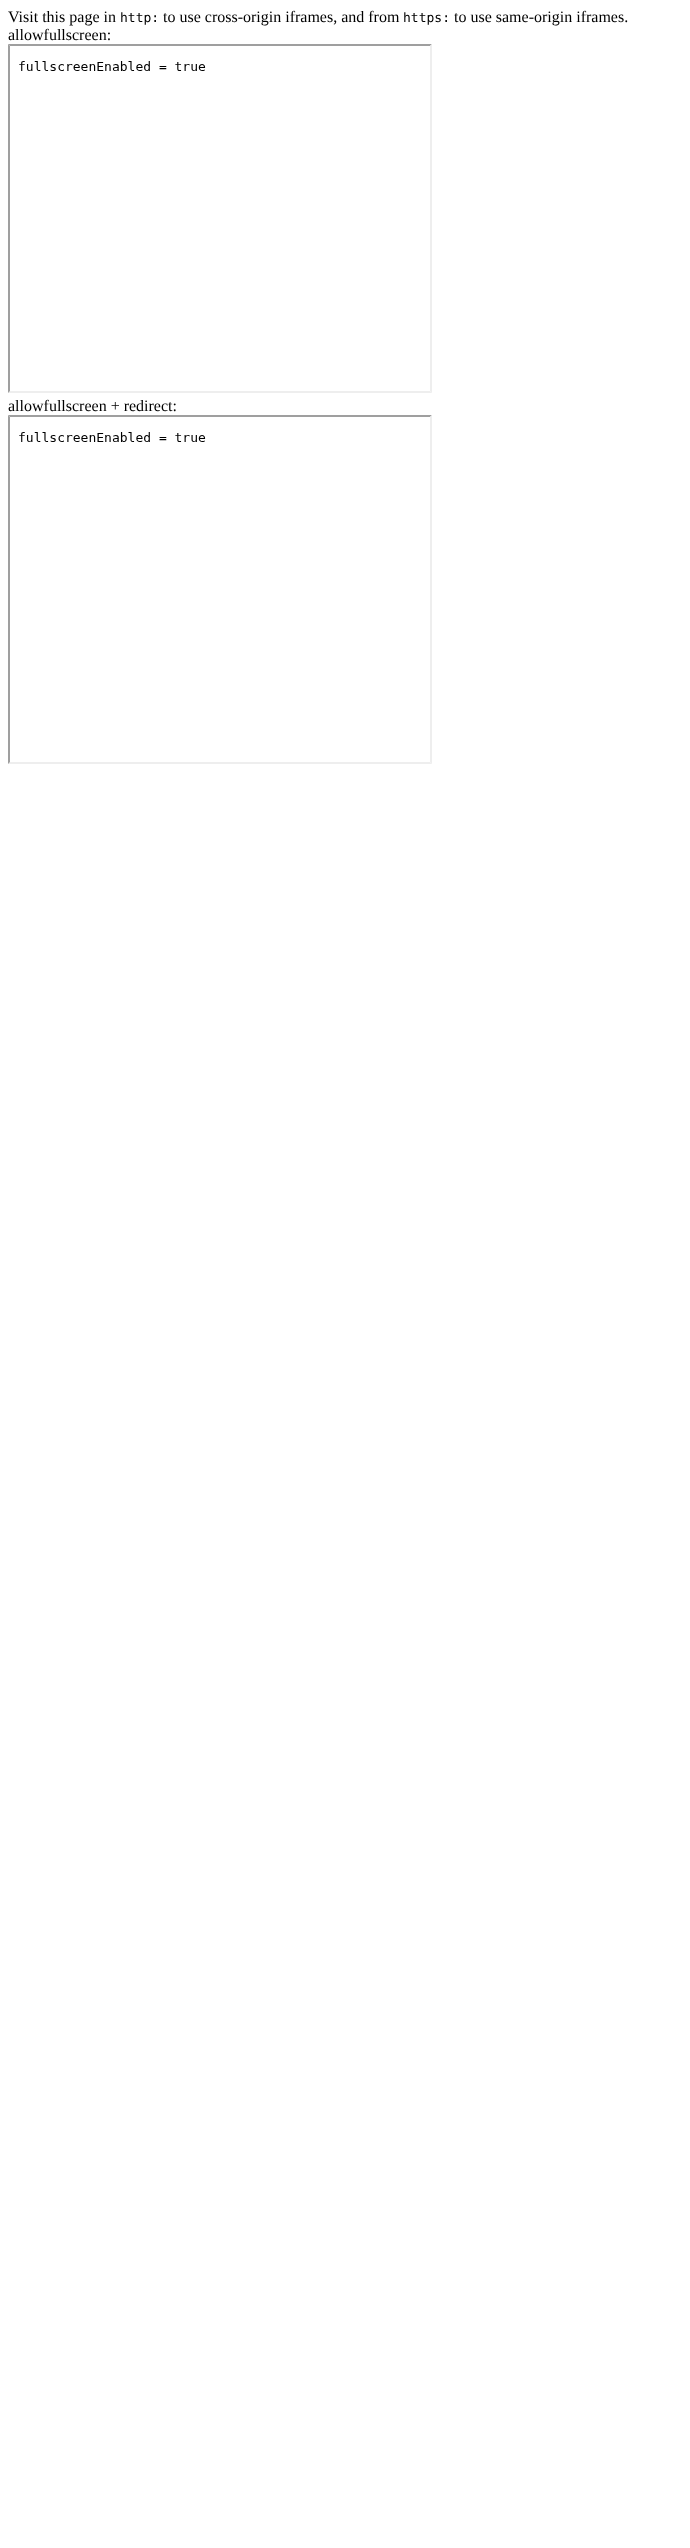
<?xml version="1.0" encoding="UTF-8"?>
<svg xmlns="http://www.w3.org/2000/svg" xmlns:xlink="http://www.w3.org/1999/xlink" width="690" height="2548">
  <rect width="100%" height="100%" fill="#ffffff" />
  <path d="M 8 44 h 424 l -2 2 h -420 z" fill="#9f9f9f" />
  <path d="M 432 44 v 349 l -2 -2 v -345 z" fill="#eeeeee" />
  <path d="M 432 393 h -424 l 2 -2 h 420 z" fill="#eeeeee" />
  <path d="M 8 393 v -349 l 2 2 v 345 z" fill="#9f9f9f" />
  <image x="19" y="61" width="187" height="10" xlink:href="image1.png" />
  <path d="M 8 415 h 424 l -2 2 h -420 z" fill="#9f9f9f" />
  <path d="M 432 415 v 349 l -2 -2 v -345 z" fill="#eeeeee" />
  <path d="M 432 764 h -424 l 2 -2 h 420 z" fill="#eeeeee" />
  <path d="M 8 764 v -349 l 2 2 v 345 z" fill="#9f9f9f" />
  <image x="19" y="432" width="187" height="10" xlink:href="image1.png" />
  <text x="8" y="22" style="font-family: Liberation Serif; font-size: 16px; fill: #000000">Visit this page in</text>
  <text x="120" y="22" style="font-family: DejaVu Sans Mono; font-size: 13px; fill: #000000">http:</text>
  <text x="163" y="22" style="font-family: Liberation Serif; font-size: 16px; fill: #000000">to use cross-origin iframes, and from</text>
  <text x="403" y="22" style="font-family: DejaVu Sans Mono; font-size: 13px; fill: #000000">https:</text>
  <text x="454" y="22" style="font-family: Liberation Serif; font-size: 16px; fill: #000000">to use same-origin iframes.</text>
  <text x="8" y="40" style="font-family: Liberation Serif; font-size: 16px; fill: #000000">allowfullscreen:</text>
  <text x="8" y="411" style="font-family: Liberation Serif; font-size: 16px; fill: #000000">allowfullscreen + redirect:</text>
</svg>
